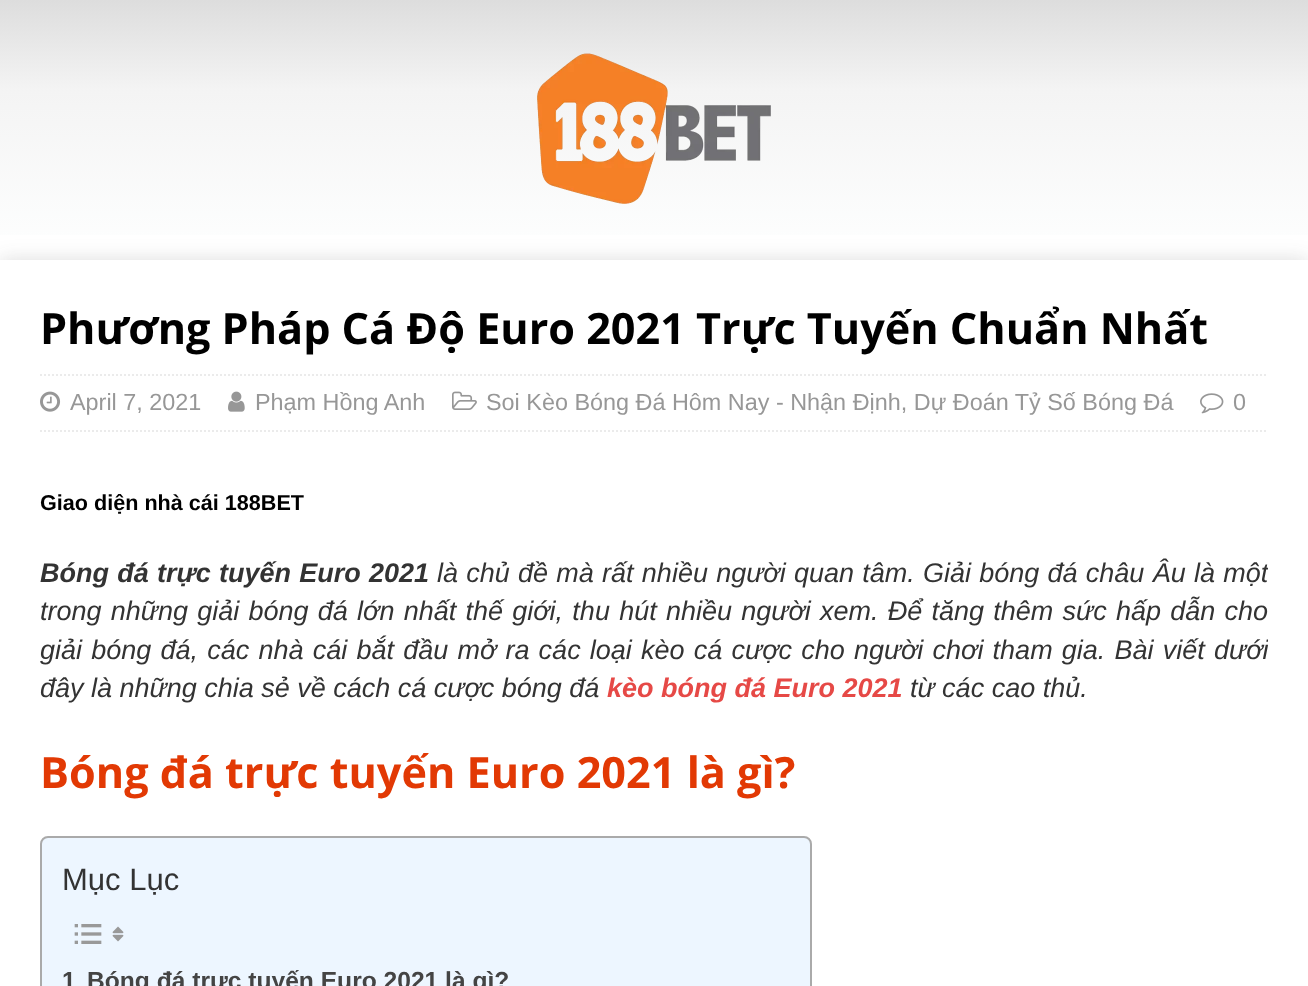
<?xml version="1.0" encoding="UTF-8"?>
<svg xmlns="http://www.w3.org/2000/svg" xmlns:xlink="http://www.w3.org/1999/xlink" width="1308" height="986">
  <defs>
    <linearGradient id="g1" gradientUnits="userSpaceOnUse" x1="654" y1="0" x2="654" y2="260"><stop offset="0" stop-color="#dddddd" /><stop offset="0.35" stop-color="#f4f4f4" /><stop offset="1" stop-color="#feffff" /></linearGradient>
    <clipPath id="clip1"><rect x="40" y="300" width="1228" height="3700" /></clipPath>
  </defs>
  <rect width="100%" height="100%" fill="#ffffff" />
  <rect width="1308" height="235" fill="url(#g1)" />
  <image x="537" y="53" width="234" height="151" xlink:href="image1.png" />
  <rect y="260" width="1308" height="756" fill="#323232" fill-opacity="0.17" filter="blur(10px)" />
  <rect y="260" width="1308" height="726" fill="#ffffff" />
  <path d="M 40 375 h 1228" fill="none" stroke="#ebebeb" stroke-width="2" stroke-dasharray="2 2" />
  <path d="M 40 431 h 1228" fill="none" stroke="#ebebeb" stroke-width="2" stroke-dasharray="2 2" />
  <image x="40" y="391" width="21" height="21" xlink:href="image2.png" />
  <image x="228" y="391" width="17" height="21" xlink:href="image3.png" />
  <image x="452" y="391" width="25" height="19" xlink:href="image4.png" />
  <image x="1200" y="393" width="24" height="21" xlink:href="image5.png" />
  <rect x="41" y="837" width="770" height="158" rx="7" fill="#edf6ff" stroke="#aaaaaa" stroke-width="2" />
  <image x="74" y="924" width="28" height="20" xlink:href="image6.png" />
  <image x="112" y="926" width="12" height="16" xlink:href="image7.png" />
  <text x="40" y="344" word-spacing="-0.1" style="font-family: Open Sans; font-size: 43.2px; font-weight: bold; fill: #000000">Phương Pháp Cá Độ Euro 2021 Trực Tuyến Chuẩn Nhất</text>
  <text x="70" y="410" style="font-family: Liberation Sans; font-size: 23.4px; fill: #979797">April 7, 2021</text>
  <text x="255" y="410" style="font-family: Liberation Sans; font-size: 23.4px; fill: #979797">Phạm Hồng Anh</text>
  <text x="486" y="410" style="font-family: Liberation Sans; font-size: 23.4px; fill: #979797">Soi Kèo Bóng Đá Hôm Nay - Nhận Định, Dự Đoán Tỷ Số Bóng Đá</text>
  <text x="1233" y="410" style="font-family: Liberation Sans; font-size: 23.4px; fill: #979797">0</text>
  <text x="40" y="510" style="font-family: Liberation Sans; font-size: 21.6px; font-weight: bold; fill: #000000">Giao diện nhà cái 188BET</text>
  <text x="40" y="582" word-spacing="0.75" style="font-family: Liberation Sans; font-size: 27px; font-weight: bold; font-style: italic; fill: #333333">Bóng đá trực tuyến Euro 2021</text>
  <g clip-path="url(#clip1)">
    <text x="437" y="582" word-spacing="0.75" style="font-family: Liberation Sans; font-size: 27px; font-style: italic; fill: #333333">là chủ đề mà rất nhiều người quan tâm. Giải bóng đá châu Âu là một</text>
  </g>
  <text x="40" y="620" word-spacing="1.75" style="font-family: Liberation Sans; font-size: 27px; font-style: italic; fill: #333333">trong những giải bóng đá lớn nhất thế giới, thu hút nhiều người xem. Để tăng thêm sức hấp dẫn cho</text>
  <g clip-path="url(#clip1)">
    <text x="40" y="659" word-spacing="1.7" style="font-family: Liberation Sans; font-size: 27px; font-style: italic; fill: #333333">giải bóng đá, các nhà cái bắt đầu mở ra các loại kèo cá cược cho người chơi tham gia. Bài viết dưới</text>
  </g>
  <text x="40" y="697" style="font-family: Liberation Sans; font-size: 27px; font-style: italic; fill: #333333">đây là những chia sẻ về cách cá cược bóng đá</text>
  <text x="607" y="697" style="font-family: Liberation Sans; font-size: 27px; font-weight: bold; font-style: italic; fill: #e64946">kèo bóng đá Euro 2021</text>
  <text x="910" y="697" style="font-family: Liberation Sans; font-size: 27px; font-style: italic; fill: #333333">từ các cao thủ.</text>
  <text x="40" y="788" style="font-family: Open Sans; font-size: 43.2px; font-weight: bold; fill: #e23904">Bóng đá trực tuyến Euro 2021 là gì?</text>
  <text x="62" y="890" style="font-family: Liberation Sans; font-size: 31px; fill: #333333">Mục Lục</text>
  <text x="62" y="989" style="font-family: Liberation Sans; font-size: 24.6px; font-weight: bold; fill: #444444">1</text>
  <text x="87" y="989" style="font-family: Liberation Sans; font-size: 24.6px; font-weight: bold; fill: #444444">Bóng đá trực tuyến Euro 2021 là gì?</text>
</svg>
